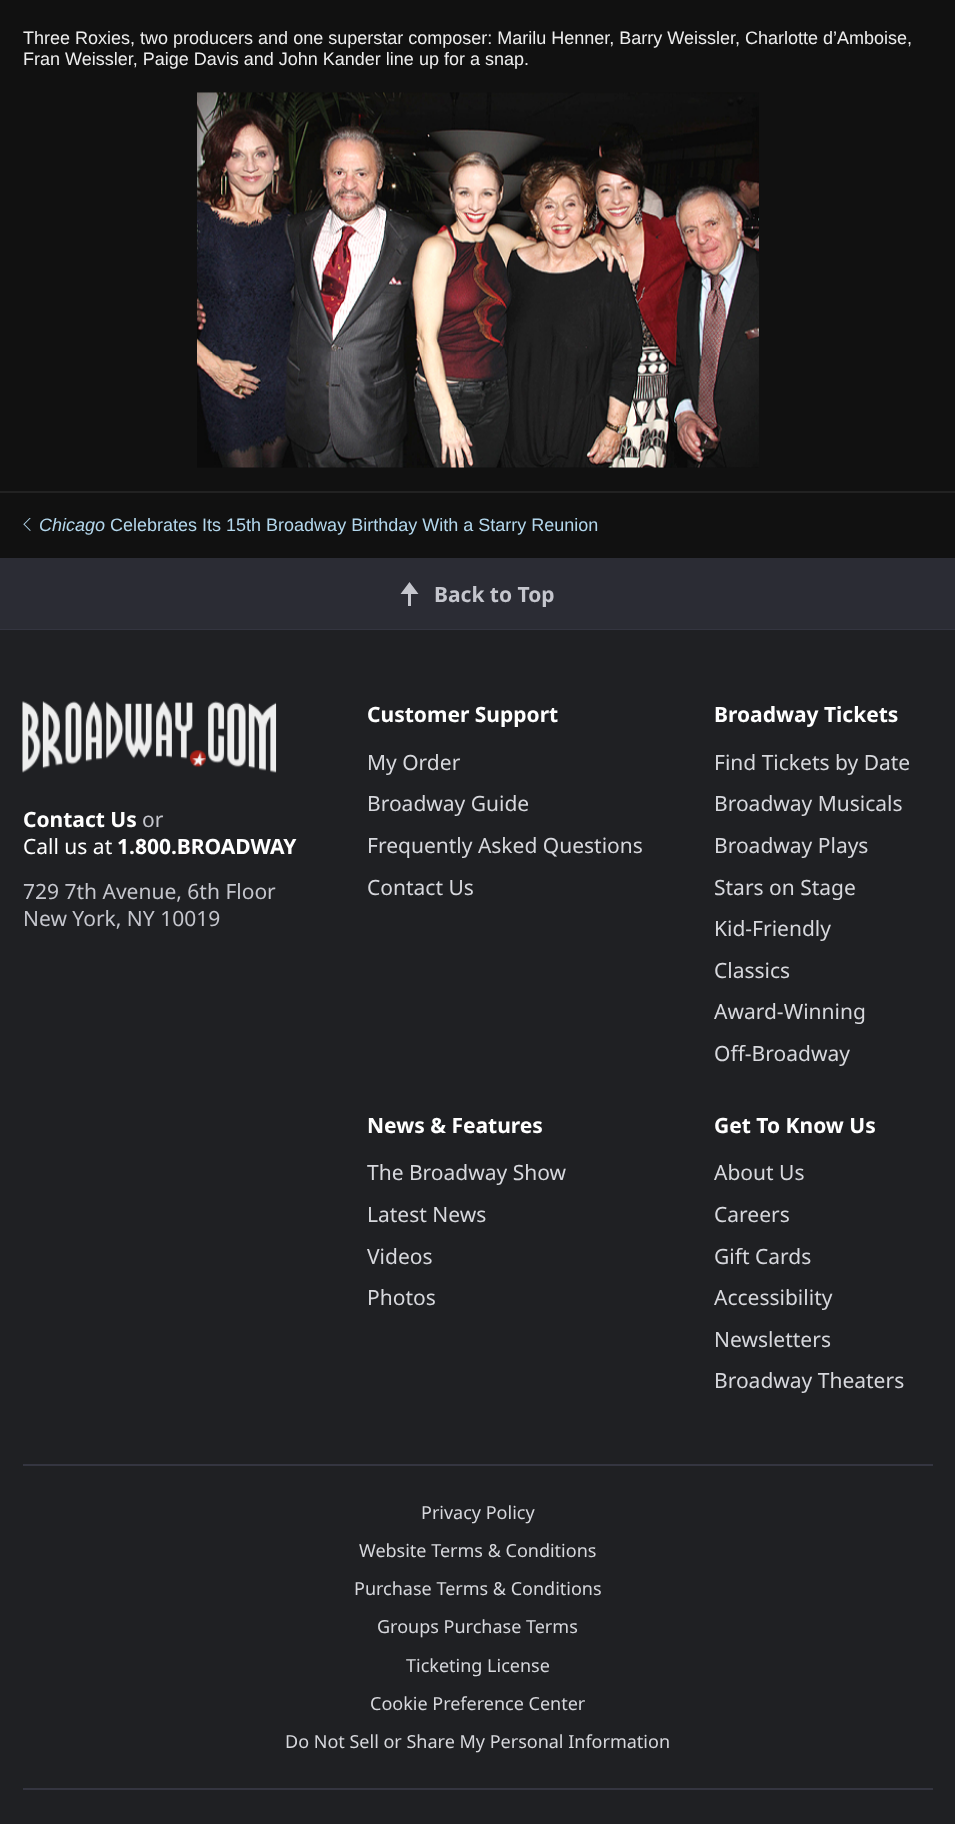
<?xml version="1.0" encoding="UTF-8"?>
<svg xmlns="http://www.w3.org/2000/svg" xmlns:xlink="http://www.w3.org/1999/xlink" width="955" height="1824">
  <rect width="100%" height="100%" fill="#111111" />
  <image x="197" y="92" width="562" height="376" xlink:href="image1.png" />
  <rect y="491" width="955" height="2" fill="#222222" />
  <image x="23" y="518" width="8" height="13" xlink:href="image2.png" />
  <rect y="558" width="955" height="71" fill="#2b2c34" />
  <rect y="629" width="955" height="1" fill="#343540" />
  <path d="M 409.5 582 l 9 12 h -7.5 v 12 h -3 v -12 h -7.5 z" fill="#c5c6cd" fill-rule="evenodd" />
  <rect y="630" width="955" height="1194" fill="#1f2023" />
  <image x="22" y="701" width="255" height="72" xlink:href="image3.png" />
  <rect x="23" y="1464" width="910" height="2" fill="#343540" />
  <rect x="23" y="1788" width="910" height="2" fill="#343540" />
  <text x="23" y="44" style="font-family: Liberation Sans; font-size: 18px; fill: #eeeeee">Three Roxies, two producers and one superstar composer: Marilu Henner, Barry Weissler, Charlotte d’Amboise,</text>
  <text x="23" y="65" style="font-family: Liberation Sans; font-size: 18px; fill: #eeeeee">Fran Weissler, Paige Davis and John Kander line up for a snap.</text>
  <text x="39" y="531" style="font-family: Liberation Sans; font-size: 18px; font-style: italic; fill: #b3d7ec">Chicago</text>
  <text x="110" y="531" style="font-family: Liberation Sans; font-size: 18px; fill: #b3d7ec">Celebrates Its 15th Broadway Birthday With a Starry Reunion</text>
  <text x="434" y="602" style="font-family: Noto Sans; font-size: 21px; font-weight: bold; fill: #c5c6cd">Back to Top</text>
  <text x="23" y="827" style="font-family: Noto Sans; font-size: 21px; font-weight: bold; fill: #ffffff">Contact Us</text>
  <text x="142" y="827" style="font-family: Noto Sans; font-size: 21px; fill: #c5c6cd">or</text>
  <text x="23" y="854" style="font-family: Noto Sans; font-size: 21px; fill: #ffffff">Call us at</text>
  <text x="117" y="854" style="font-family: Noto Sans; font-size: 21px; font-weight: bold; fill: #ffffff">1.800.BROADWAY</text>
  <text x="23" y="899" style="font-family: Noto Sans; font-size: 21px; fill: #c5c6cd">729 7th Avenue, 6th Floor</text>
  <text x="23" y="926" style="font-family: Noto Sans; font-size: 21px; fill: #c5c6cd">New York, NY 10019</text>
  <text x="367" y="722" style="font-family: Noto Sans; font-size: 21px; font-weight: bold; fill: #ffffff">Customer Support</text>
  <text x="367" y="770" style="font-family: Noto Sans; font-size: 21px; fill: #d7d8dd">My Order</text>
  <text x="367" y="811" style="font-family: Noto Sans; font-size: 21px; fill: #d7d8dd">Broadway Guide</text>
  <text x="367" y="853" style="font-family: Noto Sans; font-size: 21px; fill: #d7d8dd">Frequently Asked Questions</text>
  <text x="367" y="895" style="font-family: Noto Sans; font-size: 21px; fill: #d7d8dd">Contact Us</text>
  <text x="714" y="722" style="font-family: Noto Sans; font-size: 21px; font-weight: bold; fill: #ffffff">Broadway Tickets</text>
  <text x="714" y="770" style="font-family: Noto Sans; font-size: 21px; fill: #d7d8dd">Find Tickets by Date</text>
  <text x="714" y="811" style="font-family: Noto Sans; font-size: 21px; fill: #d7d8dd">Broadway Musicals</text>
  <text x="714" y="853" style="font-family: Noto Sans; font-size: 21px; fill: #d7d8dd">Broadway Plays</text>
  <text x="714" y="895" style="font-family: Noto Sans; font-size: 21px; fill: #d7d8dd">Stars on Stage</text>
  <text x="714" y="936" style="font-family: Noto Sans; font-size: 21px; fill: #d7d8dd">Kid-Friendly</text>
  <text x="714" y="978" style="font-family: Noto Sans; font-size: 21px; fill: #d7d8dd">Classics</text>
  <text x="714" y="1019" style="font-family: Noto Sans; font-size: 21px; fill: #d7d8dd">Award-Winning</text>
  <text x="714" y="1061" style="font-family: Noto Sans; font-size: 21px; fill: #d7d8dd">Off-Broadway</text>
  <text x="367" y="1133" style="font-family: Noto Sans; font-size: 21px; font-weight: bold; fill: #ffffff">News &amp; Features</text>
  <text x="367" y="1180" style="font-family: Noto Sans; font-size: 21px; fill: #d7d8dd">The Broadway Show</text>
  <text x="367" y="1222" style="font-family: Noto Sans; font-size: 21px; fill: #d7d8dd">Latest News</text>
  <text x="367" y="1264" style="font-family: Noto Sans; font-size: 21px; fill: #d7d8dd">Videos</text>
  <text x="367" y="1305" style="font-family: Noto Sans; font-size: 21px; fill: #d7d8dd">Photos</text>
  <text x="714" y="1133" style="font-family: Noto Sans; font-size: 21px; font-weight: bold; fill: #ffffff">Get To Know Us</text>
  <text x="714" y="1180" style="font-family: Noto Sans; font-size: 21px; fill: #d7d8dd">About Us</text>
  <text x="714" y="1222" style="font-family: Noto Sans; font-size: 21px; fill: #d7d8dd">Careers</text>
  <text x="714" y="1264" style="font-family: Noto Sans; font-size: 21px; fill: #d7d8dd">Gift Cards</text>
  <text x="714" y="1305" style="font-family: Noto Sans; font-size: 21px; fill: #d7d8dd">Accessibility</text>
  <text x="714" y="1347" style="font-family: Noto Sans; font-size: 21px; fill: #d7d8dd">Newsletters</text>
  <text x="714" y="1388" style="font-family: Noto Sans; font-size: 21px; fill: #d7d8dd">Broadway Theaters</text>
  <text x="421" y="1519" style="font-family: Noto Sans; font-size: 18px; fill: #d7d8dd">Privacy Policy</text>
  <text x="359" y="1557" style="font-family: Noto Sans; font-size: 18px; fill: #d7d8dd">Website Terms &amp; Conditions</text>
  <text x="354" y="1595" style="font-family: Noto Sans; font-size: 18px; fill: #d7d8dd">Purchase Terms &amp; Conditions</text>
  <text x="377" y="1633" style="font-family: Noto Sans; font-size: 18px; fill: #d7d8dd">Groups Purchase Terms</text>
  <text x="406" y="1672" style="font-family: Noto Sans; font-size: 18px; fill: #d7d8dd">Ticketing License</text>
  <text x="370" y="1710" style="font-family: Noto Sans; font-size: 18px; fill: #d7d8dd">Cookie Preference Center</text>
  <text x="285" y="1748" style="font-family: Noto Sans; font-size: 18px; fill: #d7d8dd">Do Not Sell or Share My Personal Information</text>
</svg>
